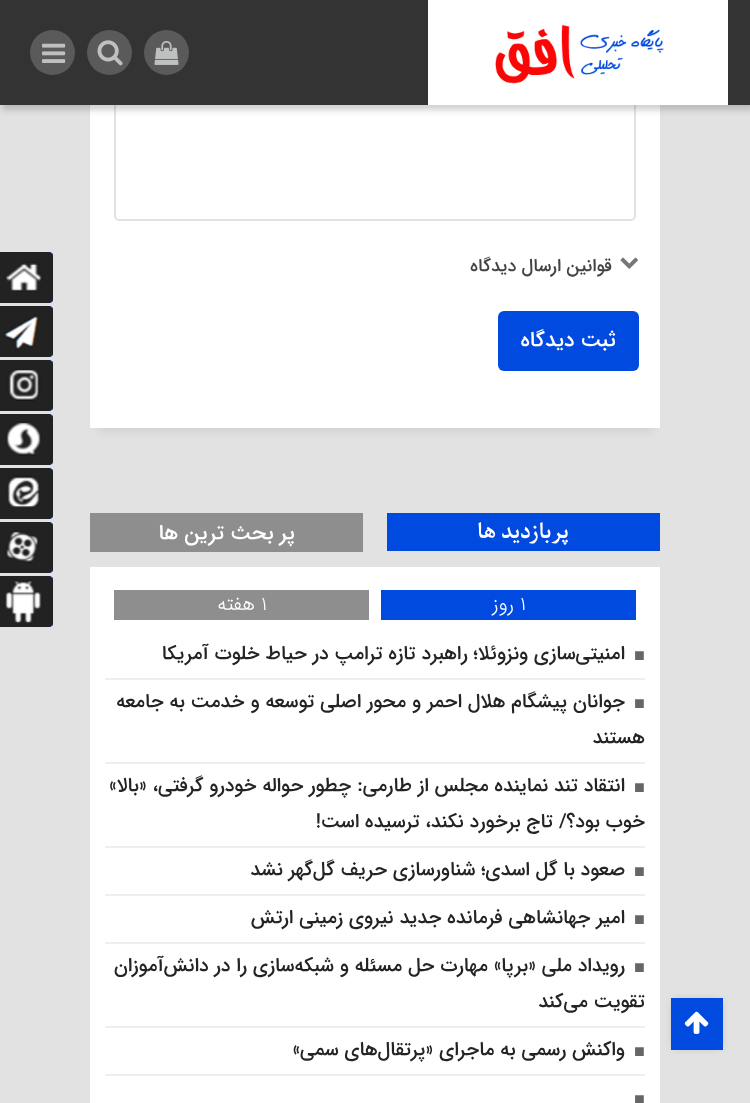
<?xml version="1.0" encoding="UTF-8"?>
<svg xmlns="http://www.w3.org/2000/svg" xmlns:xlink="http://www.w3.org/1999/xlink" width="750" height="1103">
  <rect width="100%" height="100%" fill="#e2e2e2" />
  <rect x="90" y="567" width="570" height="536" fill="#ffffff" />
  <rect x="675" y="1002" width="44" height="44" fill="#000000" fill-opacity="0.3" filter="blur(5px)" />
  <rect x="671" y="998" width="52" height="52" fill="#004ae0" />
  <image x="684" y="1011" width="25" height="23" xlink:href="image1.png" />
  <rect x="98" y="-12" width="555" height="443" fill="#cfcfcf" filter="blur(4px)" />
  <rect x="90" y="105" width="570" height="323" fill="#ffffff" />
  <rect x="115" y="72" width="520" height="148" rx="4" fill="none" stroke="#e2e2e2" stroke-width="2" />
  <rect x="2" y="2" width="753" height="108" fill="#343333" fill-opacity="0.23" filter="blur(3px)" />
  <rect width="750" height="105" fill="#333333" />
  <rect x="428" width="300" height="105" fill="#ffffff" />
  <image x="495" y="24" width="169" height="60" xlink:href="image2.png" />
  <circle cx="166.5" cy="52.5" r="22.5" fill="#5a5a5a" />
  <image x="154" y="40" width="25" height="25" xlink:href="image3.png" />
  <circle cx="109.5" cy="52.5" r="22.5" fill="#5a5a5a" />
  <image x="97" y="40" width="26" height="26" xlink:href="image4.png" />
  <circle cx="52.5" cy="52.5" r="22.5" fill="#5a5a5a" />
  <image x="42" y="43" width="24" height="20" xlink:href="image5.png" />
  <image x="620" y="257" width="18" height="12" xlink:href="image6.png" />
  <rect x="498" y="311" width="141" height="60" rx="6" fill="#004ae0" />
  <rect x="387" y="513" width="273" height="38" fill="#004ae0" />
  <rect x="90" y="513" width="273" height="39" fill="#8e8e8e" />
  <rect x="381" y="590" width="255" height="30" fill="#004ae0" />
  <rect x="114" y="590" width="255" height="30" fill="#8e8e8e" />
  <rect x="105" y="678" width="540" height="2" fill="#eeeeee" />
  <rect x="105" y="762" width="540" height="2" fill="#eeeeee" />
  <rect x="105" y="846" width="540" height="2" fill="#eeeeee" />
  <rect x="105" y="894" width="540" height="2" fill="#eeeeee" />
  <rect x="105" y="942" width="540" height="2" fill="#eeeeee" />
  <rect x="105" y="1026" width="540" height="2" fill="#eeeeee" />
  <rect x="105" y="1074" width="540" height="2" fill="#eeeeee" />
  <path d="M -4 252 h 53 c 2 0 4 2 4 4 v 43 c 0 2 -2 4 -4 4 h -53 z" fill="#004ae0" />
  <image x="0" y="252" width="53" height="51" xlink:href="image7.png" />
  <path d="M -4 306 h 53 c 2 0 4 2 4 4 v 43 c 0 2 -2 4 -4 4 h -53 z" fill="#004ae0" />
  <image x="0" y="306" width="53" height="51" xlink:href="image8.png" />
  <path d="M -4 360 h 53 c 2 0 4 2 4 4 v 43 c 0 2 -2 4 -4 4 h -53 z" fill="#004ae0" />
  <image x="0" y="360" width="53" height="51" xlink:href="image9.png" />
  <path d="M -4 414 h 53 c 2 0 4 2 4 4 v 43 c 0 2 -2 4 -4 4 h -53 z" fill="#004ae0" />
  <image x="0" y="414" width="53" height="51" xlink:href="image10.png" />
  <path d="M -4 468 h 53 c 2 0 4 2 4 4 v 43 c 0 2 -2 4 -4 4 h -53 z" fill="#004ae0" />
  <image x="0" y="468" width="53" height="51" xlink:href="image11.png" />
  <path d="M -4 522 h 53 c 2 0 4 2 4 4 v 43 c 0 2 -2 4 -4 4 h -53 z" fill="#004ae0" />
  <image x="0" y="522" width="53" height="51" xlink:href="image12.png" />
  <path d="M -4 576 h 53 c 2 0 4 2 4 4 v 43 c 0 2 -2 4 -4 4 h -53 z" fill="#004ae0" />
  <image x="0" y="576" width="53" height="51" xlink:href="image13.png" />
  <text x="612" y="271" style="font-family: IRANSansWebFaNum; font-size: 18px; font-weight: 500; direction: rtl; fill: #444444">قوانین ارسال دیدگاه</text>
  <text x="616" y="346" style="font-family: IRANSansWebFaNum; font-size: 21px; font-weight: 500; direction: rtl; fill: #ffffff">ثبت دیدگاه</text>
  <text x="569" y="538" style="font-family: Parastoo; font-size: 21px; font-weight: bold; direction: rtl; fill: #ffffff">پربازدید ها</text>
  <text x="295" y="539" style="font-family: IRANSansWebFaNum; font-size: 21px; font-weight: 500; direction: rtl; fill: #ffffff">پر بحث ترین ها</text>
  <text x="520" y="610" style="font-family: IRANSansWebFaNum; font-size: 19.5px; font-weight: 300; fill: #ffffff">1</text>
  <text x="514" y="610" style="font-family: IRANSansWebFaNum; font-size: 19.5px; font-weight: 300; direction: rtl; fill: #ffffff">روز</text>
  <text x="261" y="610" style="font-family: IRANSansWebFaNum; font-size: 19.5px; font-weight: 300; fill: #ffffff">1</text>
  <text x="255" y="610" style="font-family: IRANSansWebFaNum; font-size: 19.5px; font-weight: 300; direction: rtl; fill: #ffffff">هفته</text>
  <text x="634" y="661" style="font-family: Liberation Serif; font-size: 18px; fill: #666666">■</text>
  <text x="625" y="659" style="font-family: IRANSansWebFaNum; font-size: 19.5px; font-weight: 500; direction: rtl; fill: #242422">امنیتی‌سازی ونزوئلا؛ راهبرد تازه ترامپ در حیاط خلوت آمریکا</text>
  <text x="634" y="709" style="font-family: Liberation Serif; font-size: 18px; fill: #666666">■</text>
  <text x="625" y="707" style="font-family: IRANSansWebFaNum; font-size: 19.5px; font-weight: 500; direction: rtl; fill: #242422">جوانان پیشگام هلال احمر و محور اصلی توسعه و خدمت به جامعه</text>
  <text x="645" y="743" style="font-family: IRANSansWebFaNum; font-size: 19.5px; font-weight: 500; direction: rtl; fill: #242422">هستند</text>
  <text x="634" y="793" style="font-family: Liberation Serif; font-size: 18px; fill: #666666">■</text>
  <text x="625" y="791" style="font-family: IRANSansWebFaNum; font-size: 19.5px; font-weight: 500; direction: rtl; fill: #242422">انتقاد تند نماینده مجلس از طارمی: چطور حواله خودرو گرفتی، «بالا»</text>
  <text x="645" y="827" style="font-family: IRANSansWebFaNum; font-size: 19.5px; font-weight: 500; direction: rtl; fill: #242422">خوب بود؟/ تاج برخورد نکند، ترسیده است!</text>
  <text x="634" y="877" style="font-family: Liberation Serif; font-size: 18px; fill: #666666">■</text>
  <text x="625" y="875" style="font-family: IRANSansWebFaNum; font-size: 19.5px; font-weight: 500; direction: rtl; fill: #242422">صعود با گل اسدی؛ شناورسازی حریف گل‌گهر نشد</text>
  <text x="634" y="925" style="font-family: Liberation Serif; font-size: 18px; fill: #666666">■</text>
  <text x="625" y="923" style="font-family: IRANSansWebFaNum; font-size: 19.5px; font-weight: 500; direction: rtl; fill: #242422">امیر جهانشاهی فرمانده جدید نیروی زمینی ارتش</text>
  <text x="634" y="973" style="font-family: Liberation Serif; font-size: 18px; fill: #666666">■</text>
  <text x="625" y="971" style="font-family: IRANSansWebFaNum; font-size: 19.5px; font-weight: 500; direction: rtl; fill: #242422">رویداد ملی «برپا» مهارت حل مسئله و شبکه‌سازی را در دانش‌آموزان</text>
  <text x="645" y="1007" style="font-family: IRANSansWebFaNum; font-size: 19.5px; font-weight: 500; direction: rtl; fill: #242422">تقویت می‌کند</text>
  <text x="634" y="1057" style="font-family: Liberation Serif; font-size: 18px; fill: #666666">■</text>
  <text x="625" y="1055" style="font-family: IRANSansWebFaNum; font-size: 19.5px; font-weight: 500; direction: rtl; fill: #242422">واکنش رسمی به ماجرای «پرتقال‌های سمی»</text>
  <text x="634" y="1105" style="font-family: Liberation Serif; font-size: 18px; fill: #666666">■</text>
</svg>
